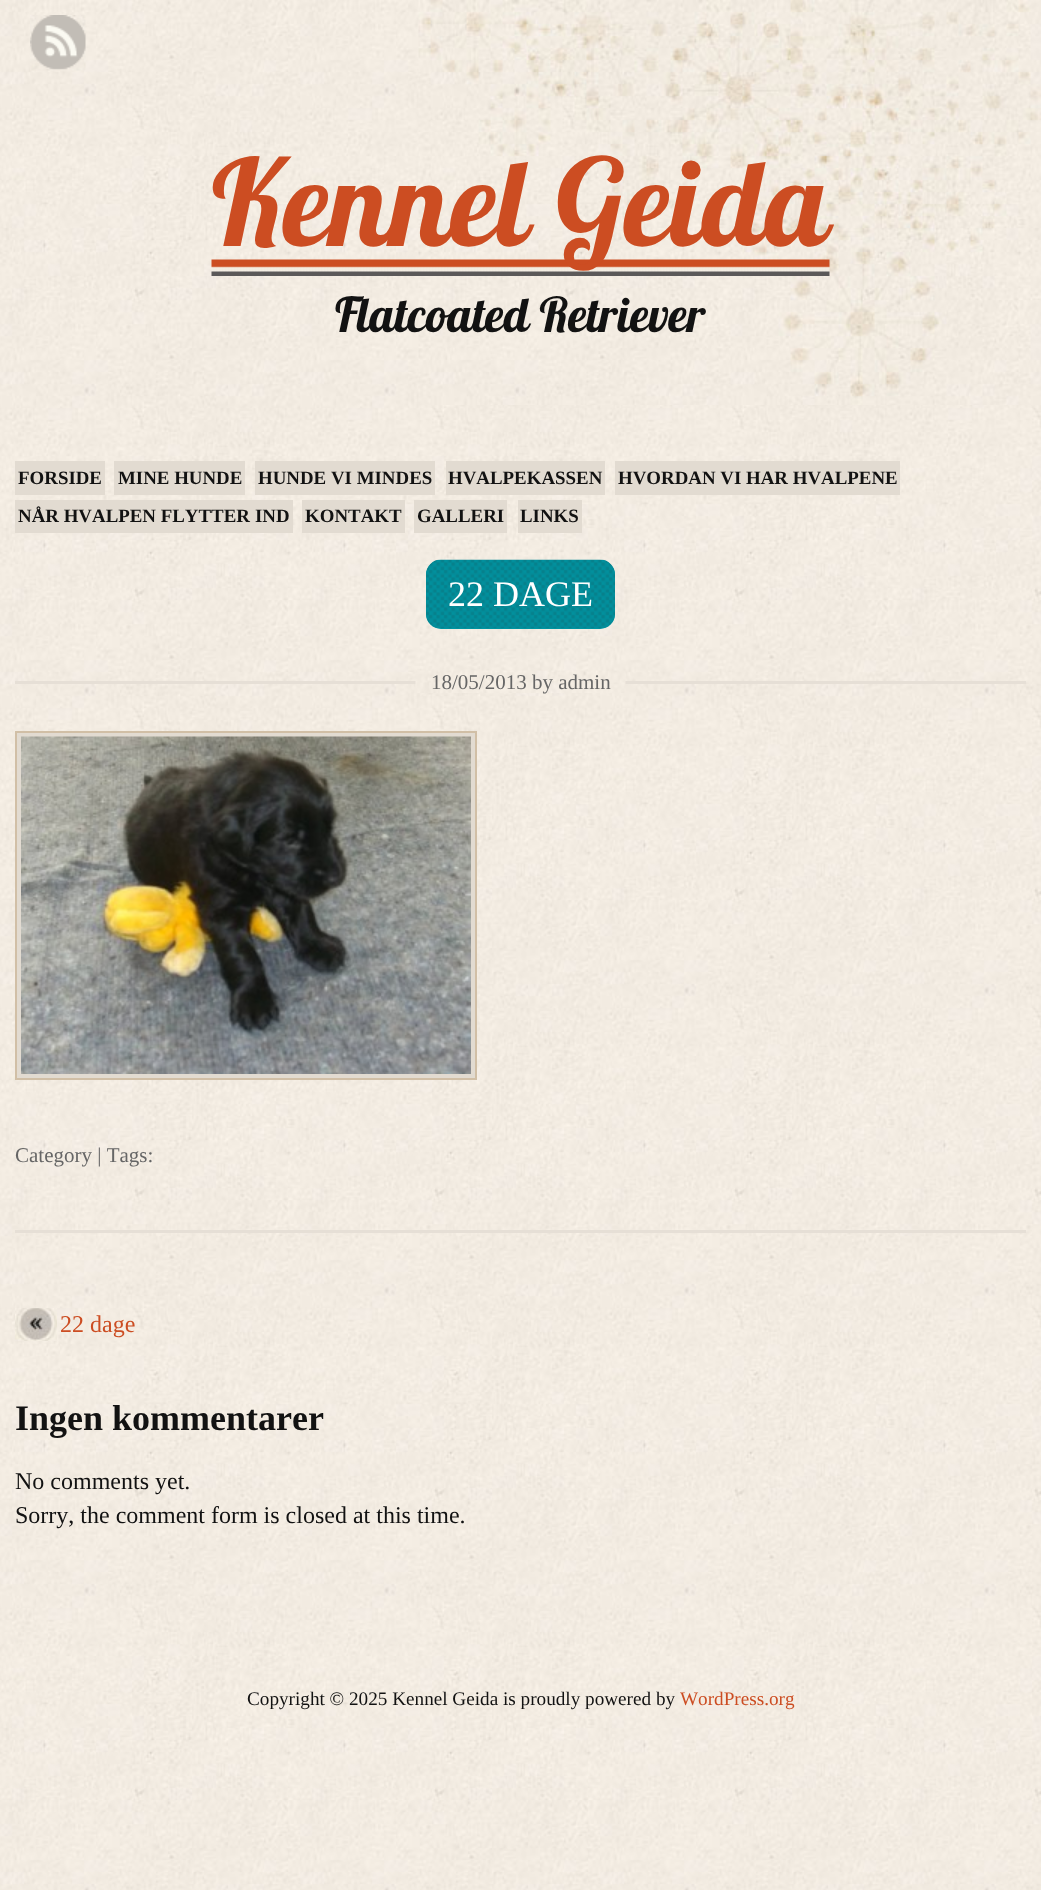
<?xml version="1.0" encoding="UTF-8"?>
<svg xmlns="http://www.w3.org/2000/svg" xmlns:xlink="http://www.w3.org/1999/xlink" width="1041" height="1890">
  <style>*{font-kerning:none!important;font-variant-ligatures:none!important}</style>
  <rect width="100%" height="100%" fill="#ffffff" />
  <image x="0" y="0" width="1041" height="1890" xlink:href="image1.png" />
  <image x="418" y="0" width="623" height="405" xlink:href="image2.png" />
  <image x="30" y="15" width="56" height="56" xlink:href="image3.png" />
  <image x="211" y="259" width="619" height="17" xlink:href="image4.png" />
  <rect x="15" y="461" width="90" height="34" fill="#e2dbd1" />
  <rect x="114" y="461" width="131" height="34" fill="#e2dbd1" />
  <rect x="255" y="461" width="180" height="34" fill="#e2dbd1" />
  <rect x="446" y="461" width="159" height="34" fill="#e2dbd1" />
  <rect x="615" y="461" width="285" height="34" fill="#e2dbd1" />
  <rect x="15" y="500" width="278" height="33" fill="#e2dbd1" />
  <rect x="302" y="500" width="103" height="33" fill="#e2dbd1" />
  <rect x="414" y="500" width="93" height="33" fill="#e2dbd1" />
  <rect x="518" y="500" width="64" height="33" fill="#e2dbd1" />
  <rect x="15" y="1230" width="1011" height="3" fill="#e6dfd6" />
  <rect x="426" y="560" width="189" height="69" rx="15" fill="#0097a5" />
  <image x="426" y="559" width="189" height="70" xlink:href="image5.png" />
  <rect x="15" y="681" width="1011" height="3" fill="#e6dfd6" />
  <image x="415" y="670" width="211" height="23" xlink:href="image6.png" />
  <rect x="16" y="732" width="460" height="347" fill="#e2dbd1" stroke="#d1bfa6" stroke-width="2" />
  <image x="21" y="736" width="450" height="338" xlink:href="image7.png" />
  <image x="15" y="1308" width="42" height="33" xlink:href="image8.png" />
  <text x="212" y="246" style="font-family: Lobster; font-size: 120px; fill: #cc4d22">Kennel Geida</text>
  <text x="335" y="332" style="font-family: Lobster; font-size: 48px; fill: #121212">Flatcoated Retriever</text>
  <text x="18" y="484" style="font-family: Liberation Serif; font-size: 18.9px; font-weight: bold; fill: #121212">FORSIDE</text>
  <text x="118" y="484" style="font-family: Liberation Serif; font-size: 18.9px; font-weight: bold; fill: #121212">MINE HUNDE</text>
  <text x="258" y="484" style="font-family: Liberation Serif; font-size: 18.9px; font-weight: bold; fill: #121212">HUNDE VI MINDES</text>
  <text x="448" y="484" style="font-family: Liberation Serif; font-size: 18.9px; font-weight: bold; fill: #121212">HVALPEKASSEN</text>
  <text x="618" y="484" style="font-family: Liberation Serif; font-size: 18.9px; font-weight: bold; fill: #121212">HVORDAN VI HAR HVALPENE</text>
  <text x="18" y="522" style="font-family: Liberation Serif; font-size: 18.9px; font-weight: bold; fill: #121212">NÅR HVALPEN FLYTTER</text>
  <text x="255" y="522" style="font-family: Liberation Serif; font-size: 18.9px; font-weight: bold; fill: #121212">IND</text>
  <text x="305" y="522" style="font-family: Liberation Serif; font-size: 18.9px; font-weight: bold; fill: #121212">KONTAKT</text>
  <text x="417" y="522" style="font-family: Liberation Serif; font-size: 18.9px; font-weight: bold; fill: #121212">GALLERI</text>
  <text x="520" y="522" style="font-family: Liberation Serif; font-size: 18.9px; font-weight: bold; fill: #121212">LINKS</text>
  <text x="448" y="606" style="font-family: Liberation Serif; font-size: 36px; fill: #ffffff">22 DAGE</text>
  <text x="431" y="689" style="font-family: Liberation Serif; font-size: 21px; fill: #666666">18/05/2013 by admin</text>
  <text x="15" y="1162" style="font-family: Liberation Serif; font-size: 21px; fill: #666666">Category | Tags:</text>
  <text x="60" y="1332" style="font-family: Liberation Serif; font-size: 24px; fill: #cc4d22">22 dage</text>
  <text x="15" y="1430" style="font-family: Liberation Serif; font-size: 36px; font-weight: bold; fill: #121212">Ingen kommentarer</text>
  <text x="15" y="1489" style="font-family: Liberation Serif; font-size: 24px; fill: #121212">No comments yet.</text>
  <text x="15" y="1523" style="font-family: Liberation Serif; font-size: 24px; fill: #121212">Sorry, the comment form is closed at this time.</text>
  <text x="247" y="1705" style="font-family: Liberation Serif; font-size: 19.2px; fill: #121212">Copyright © 2025 Kennel Geida is proudly powered by</text>
  <text x="680" y="1705" style="font-family: Liberation Serif; font-size: 19.2px; fill: #cc4d22">WordPress.org</text>
</svg>
